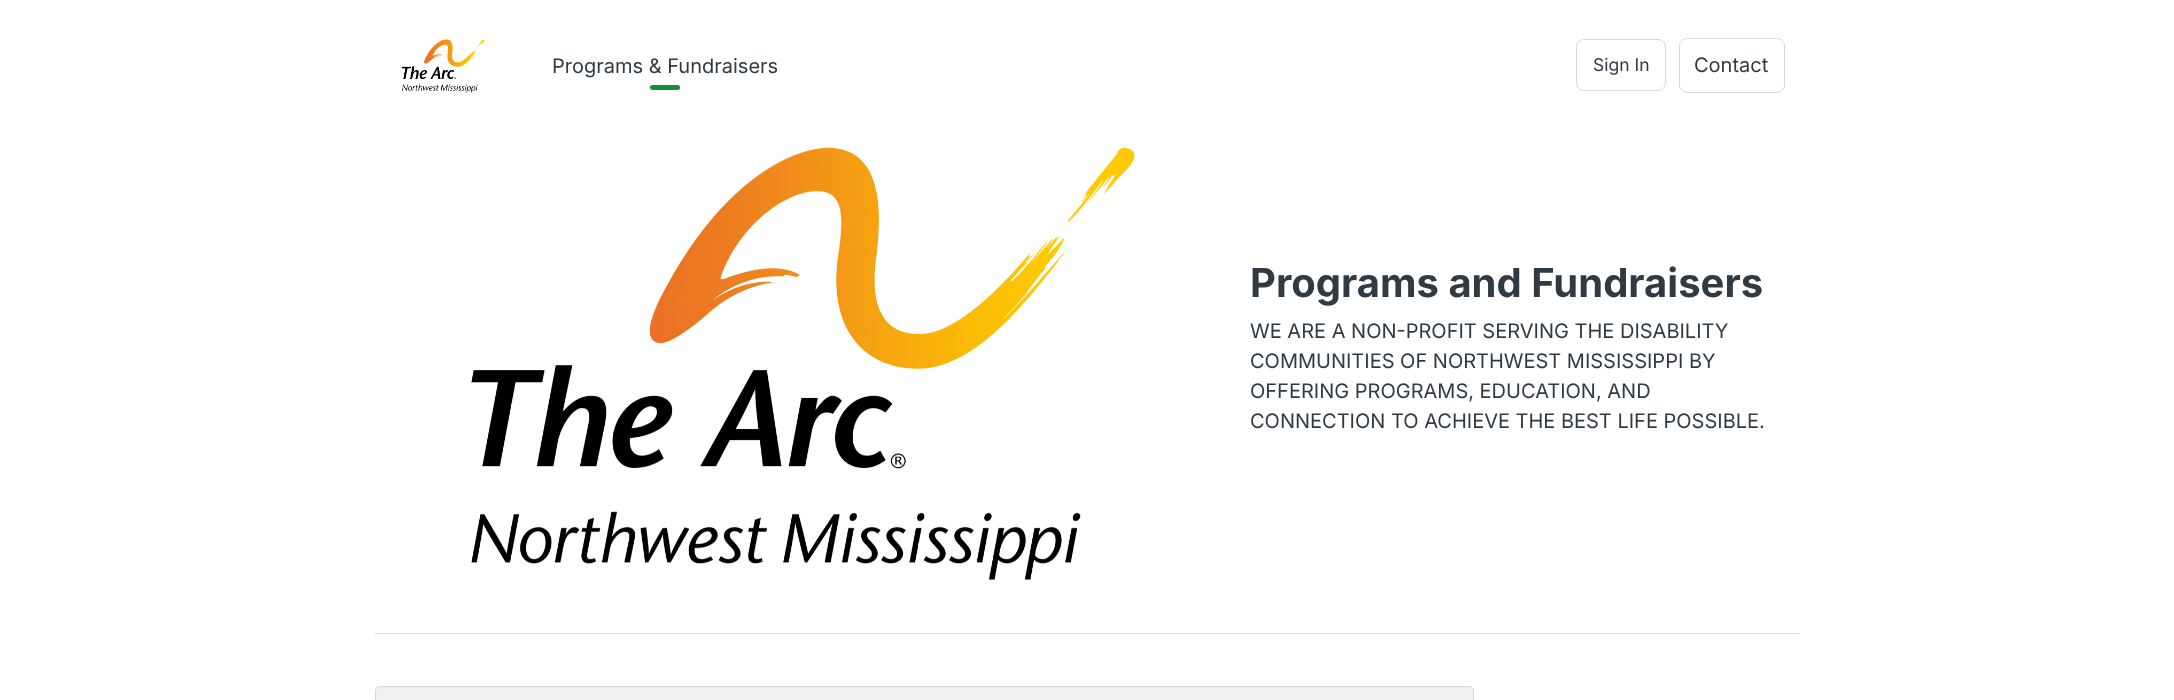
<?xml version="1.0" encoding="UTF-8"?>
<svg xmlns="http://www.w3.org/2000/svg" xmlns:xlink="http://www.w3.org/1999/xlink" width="2174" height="700">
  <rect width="100%" height="100%" fill="#ffffff" />
  <image x="402" y="39" width="83" height="54" xlink:href="image1.png" />
  <rect x="650" y="85" width="30" height="5" rx="2.5" fill="#148d3c" />
  <rect x="1576.5" y="39.5" width="89" height="51" rx="7.5" fill="none" stroke="#d4d8e1" />
  <rect x="1679.5" y="38.5" width="105" height="54" rx="7.5" fill="none" stroke="#d4d8e1" />
  <image x="471" y="147" width="664" height="433" xlink:href="image2.png" />
  <rect x="375" y="633" width="1425" height="1" fill="#d4d8e1" />
  <path d="M 380 686 h 1089 c 3 0 5 2 5 5 v 9 h -1099 v -9 c 0 -3 2 -5 5 -5 z" fill="#eff0f2" />
  <rect x="375.5" y="686.5" width="1098" height="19" rx="4.5" fill="none" stroke="#d4d8e1" />
  <text x="552" y="73" style="font-family: Inter; font-size: 20px; fill: #303a43">Programs &amp; Fundraisers</text>
  <text x="1593" y="71" style="font-family: Inter; font-size: 17.5px; fill: #303a43">Sign In</text>
  <text x="1694" y="72" style="font-family: Inter; font-size: 20px; fill: #303a43">Contact</text>
  <text x="1250" y="297" style="font-family: Inter; font-size: 40px; font-weight: bold; fill: #303a43">Programs and Fundraisers</text>
  <text x="1250" y="338" style="font-family: Inter; font-size: 20px; fill: #303a43">WE ARE A NON-PROFIT SERVING THE DISABILITY</text>
  <text x="1250" y="368" style="font-family: Inter; font-size: 20px; fill: #303a43">COMMUNITIES OF NORTHWEST MISSISSIPPI BY</text>
  <text x="1250" y="398" style="font-family: Inter; font-size: 20px; fill: #303a43">OFFERING PROGRAMS, EDUCATION, AND</text>
  <text x="1250" y="428" style="font-family: Inter; font-size: 20px; fill: #303a43">CONNECTION TO ACHIEVE THE BEST LIFE POSSIBLE.</text>
</svg>
